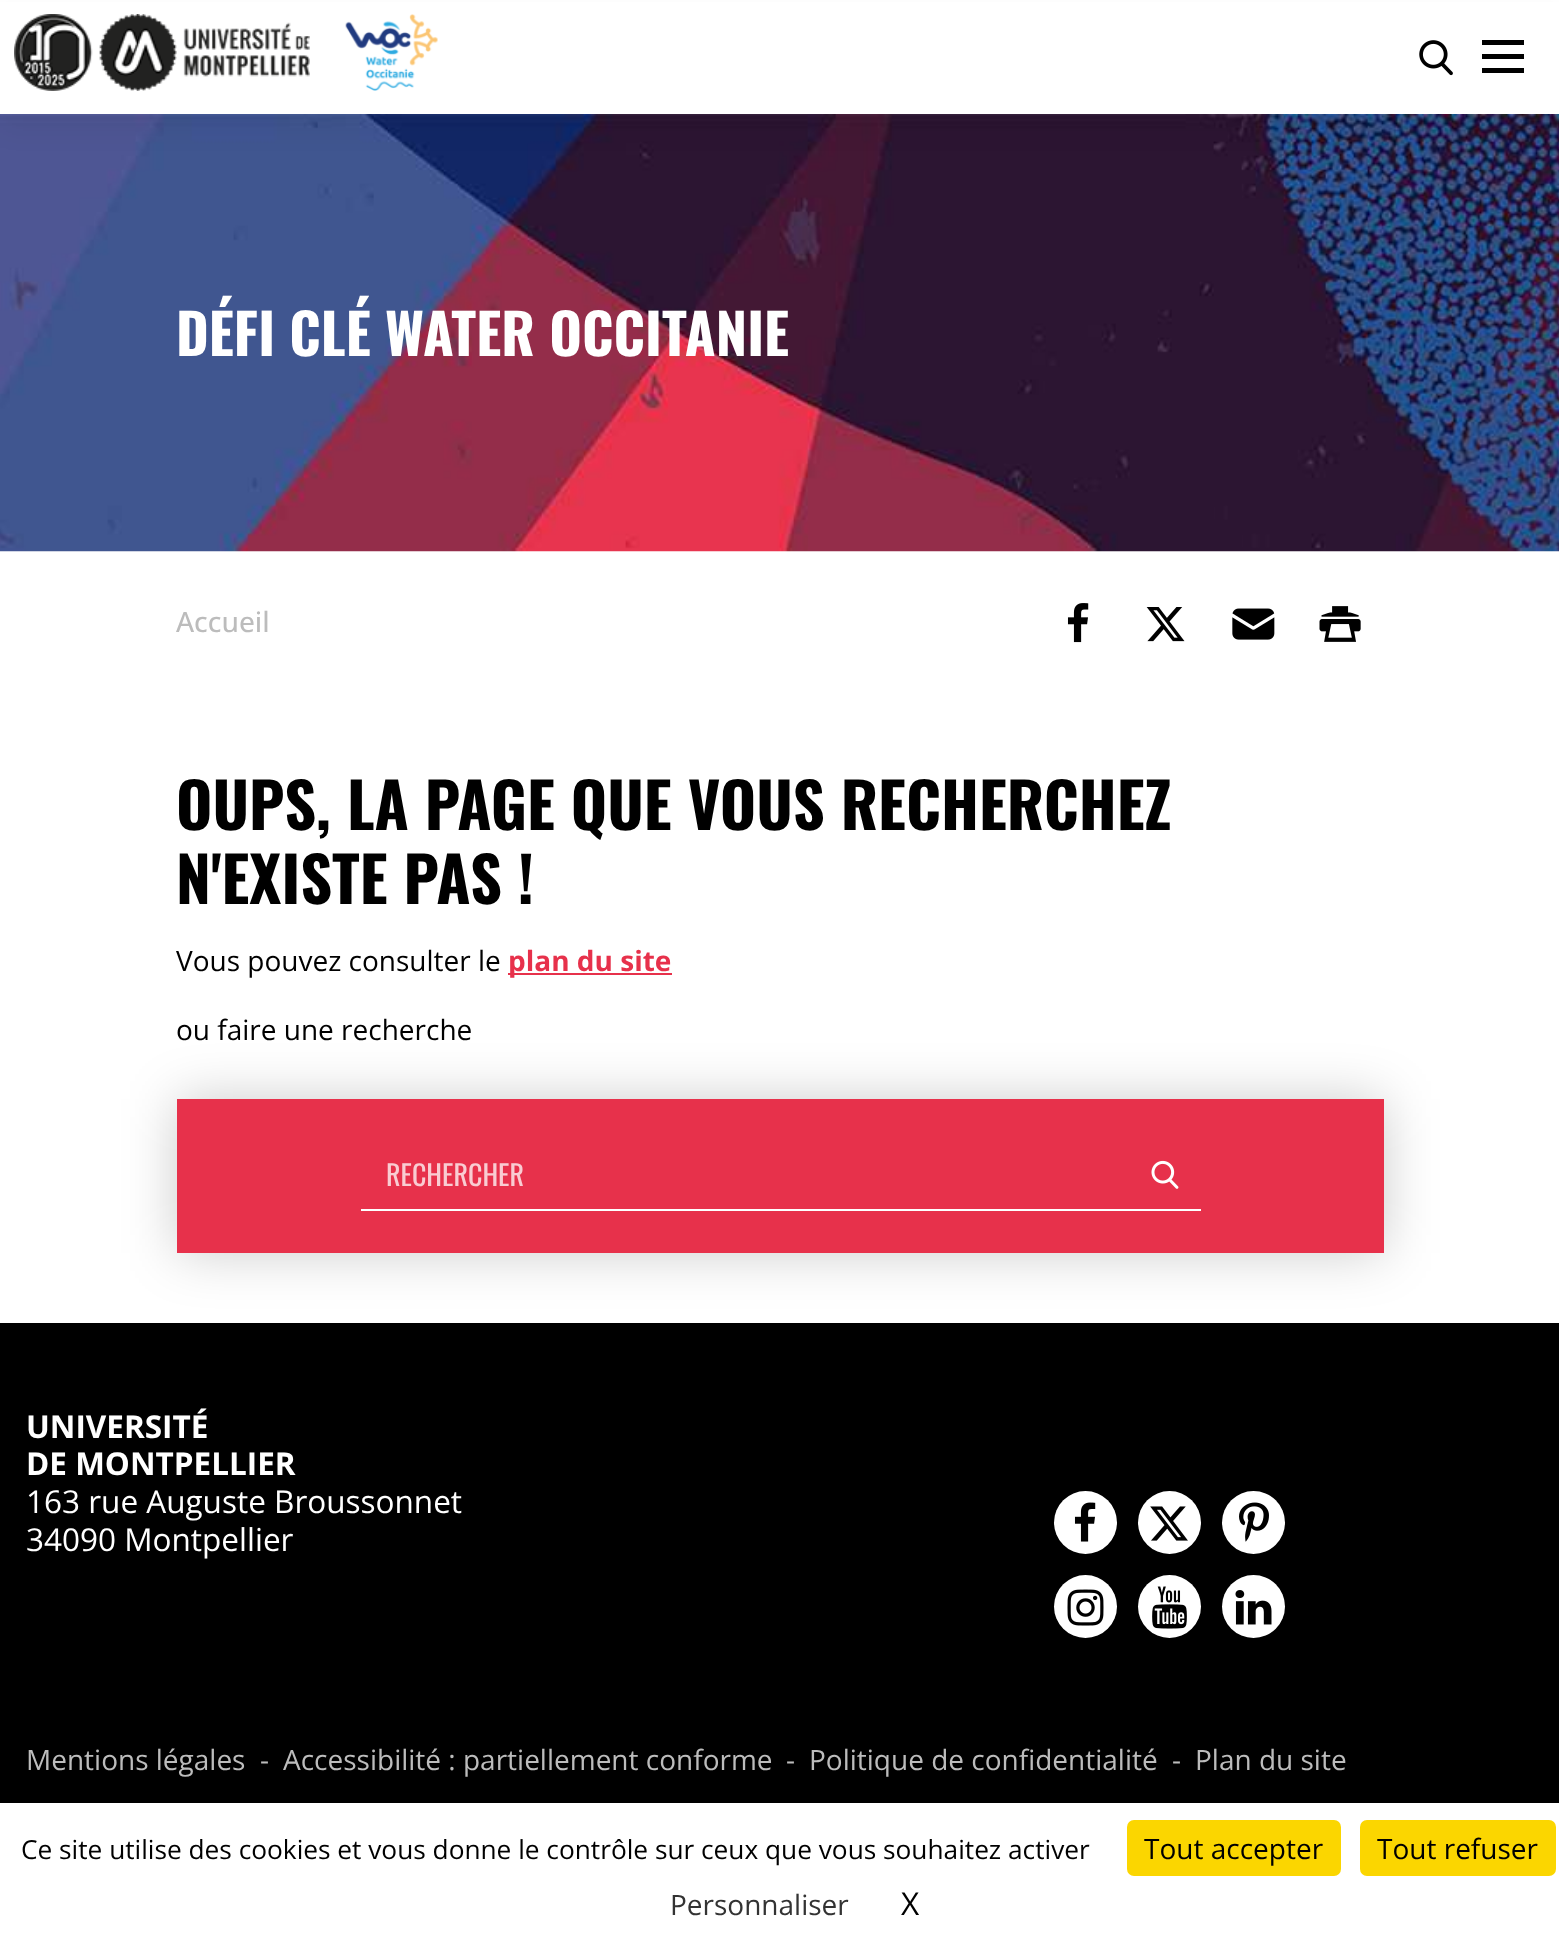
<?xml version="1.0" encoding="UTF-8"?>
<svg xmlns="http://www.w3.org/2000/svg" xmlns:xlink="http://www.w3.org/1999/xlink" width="1559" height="1949">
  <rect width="100%" height="100%" fill="#ffffff" />
  <image x="0" y="114" width="1559" height="438" xlink:href="image4.png" />
  <rect y="14" width="1559" height="114" fill="#000000" fill-opacity="0.05" filter="blur(14px)" />
  <rect y="2" width="1559" height="112" fill="#ffffff" />
  <image x="14" y="14" width="296" height="77" xlink:href="image1.png" />
  <image x="345" y="14" width="93" height="77" xlink:href="image2.png" />
  <image x="1419" y="40" width="34" height="36" xlink:href="image3.png" />
  <rect x="1482" y="54" width="42" height="5" fill="#000000" />
  <rect x="1482" y="40" width="42" height="5" fill="#000000" />
  <rect x="1482" y="68" width="42" height="5" fill="#000000" />
  <image x="1067" y="603" width="22" height="40" xlink:href="image5.png" />
  <image x="1146" y="607" width="39" height="35" xlink:href="image6.png" />
  <image x="1232" y="608" width="43" height="32" xlink:href="image7.png" />
  <image x="1319" y="606" width="42" height="36" xlink:href="image8.png" />
  <rect x="508" y="973" width="164" height="2" fill="#e7314b" />
  <rect y="1323" width="1559" height="480" fill="#000000" />
  <rect x="177" y="1099" width="1207" height="154" fill="#000000" fill-opacity="0.2" filter="blur(26.5px)" />
  <rect x="177" y="1099" width="1207" height="154" fill="#e7314b" />
  <rect x="361" y="1209" width="840" height="2" fill="#ffffff" />
  <image x="1151" y="1160" width="28" height="29" xlink:href="image9.png" />
  <circle cx="1085.5" cy="1522.5" r="31.5" fill="#ffffff" />
  <image x="1074" y="1502" width="22" height="40" xlink:href="image10.png" />
  <circle cx="1169.5" cy="1522.5" r="31.5" fill="#ffffff" />
  <image x="1150" y="1506" width="38" height="35" xlink:href="image11.png" />
  <circle cx="1253.5" cy="1522.5" r="31.5" fill="#ffffff" />
  <image x="1239" y="1502" width="30" height="40" xlink:href="image12.png" />
  <circle cx="1085.5" cy="1606.5" r="31.5" fill="#ffffff" />
  <image x="1067" y="1589" width="37" height="37" xlink:href="image13.png" />
  <circle cx="1169.5" cy="1606.5" r="31.5" fill="#ffffff" />
  <image x="1152" y="1586" width="35" height="43" xlink:href="image14.png" />
  <circle cx="1253.5" cy="1606.5" r="31.5" fill="#ffffff" />
  <image x="1235" y="1590" width="37" height="35" xlink:href="image15.png" />
  <rect y="1838" width="1559" height="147" fill="#000000" fill-opacity="0.25" filter="blur(52.5px)" />
  <rect y="1803" width="1559" height="146" fill="#ffffff" />
  <rect x="1127" y="1820" width="214" height="56" rx="7" fill="#fbd600" />
  <rect x="1360" y="1820" width="196" height="56" rx="7" fill="#fbd600" />
  <text x="176" y="356" style="font-family: Oswald; font-size: 56px; font-weight: bold; fill: #ffffff">DÉFI CLÉ WATER OCCITANIE</text>
  <text x="176" y="632" style="font-family: Open Sans; font-size: 28px; font-weight: 500; fill: #bcbcbc">Accueil</text>
  <text x="176" y="830" style="font-family: Oswald; font-size: 62.25px; font-weight: bold; fill: #000000">OUPS, LA PAGE QUE VOUS RECHERCHEZ</text>
  <text x="176" y="904" style="font-family: Oswald; font-size: 62.25px; font-weight: bold; fill: #000000">N'EXISTE PAS !</text>
  <text x="176" y="971" style="font-family: Open Sans; font-size: 28px; fill: #000000">Vous pouvez consulter le</text>
  <text x="508" y="971" style="font-family: Open Sans; font-size: 28px; font-weight: bold; fill: #e7314b">plan du site</text>
  <text x="176" y="1040" style="font-family: Open Sans; font-size: 28px; fill: #000000">ou faire une recherche</text>
  <text x="386" y="1186" style="font-family: Oswald; font-size: 28px; fill: #f9ccd2">RECHERCHER</text>
  <text x="26" y="1438" style="font-family: Open Sans; font-size: 31.5px; font-weight: bold; fill: #ffffff">UNIVERSITÉ</text>
  <text x="26" y="1475" style="font-family: Open Sans; font-size: 31.5px; font-weight: bold; fill: #ffffff">DE MONTPELLIER</text>
  <text x="26" y="1513" style="font-family: Open Sans; font-size: 31.5px; fill: #ffffff">163 rue Auguste Broussonnet</text>
  <text x="26" y="1551" style="font-family: Open Sans; font-size: 31.5px; fill: #ffffff">34090 Montpellier</text>
  <text x="26" y="1770" style="font-family: Open Sans; font-size: 28px; fill: #bcbcbc">Mentions légales</text>
  <text x="260" y="1770" style="font-family: Open Sans; font-size: 28px; fill: #bcbcbc">-</text>
  <text x="283" y="1770" style="font-family: Open Sans; font-size: 28px; fill: #bcbcbc">Accessibilité : partiellement conforme</text>
  <text x="786" y="1770" style="font-family: Open Sans; font-size: 28px; fill: #bcbcbc">-</text>
  <text x="809" y="1770" style="font-family: Open Sans; font-size: 28px; fill: #bcbcbc">Politique de confidentialité</text>
  <text x="1172" y="1770" style="font-family: Open Sans; font-size: 28px; fill: #bcbcbc">-</text>
  <text x="1195" y="1770" style="font-family: Open Sans; font-size: 28px; fill: #bcbcbc">Plan du site</text>
  <text x="21" y="1859" style="font-family: Open Sans; font-size: 26.25px; fill: #000000">Ce site utilise des cookies et vous donne le contrôle sur ceux que vous souhaitez activer</text>
  <text x="1144" y="1859" style="font-family: Open Sans; font-size: 28px; fill: #000000">Tout accepter</text>
  <text x="1377" y="1859" style="font-family: Open Sans; font-size: 28px; fill: #000000">Tout refuser</text>
  <text x="670" y="1915" style="font-family: Open Sans; font-size: 28px; fill: #333333">Personnaliser</text>
  <text x="901" y="1915" style="font-family: Open Sans; font-size: 31.5px; fill: #000000">X</text>
</svg>
